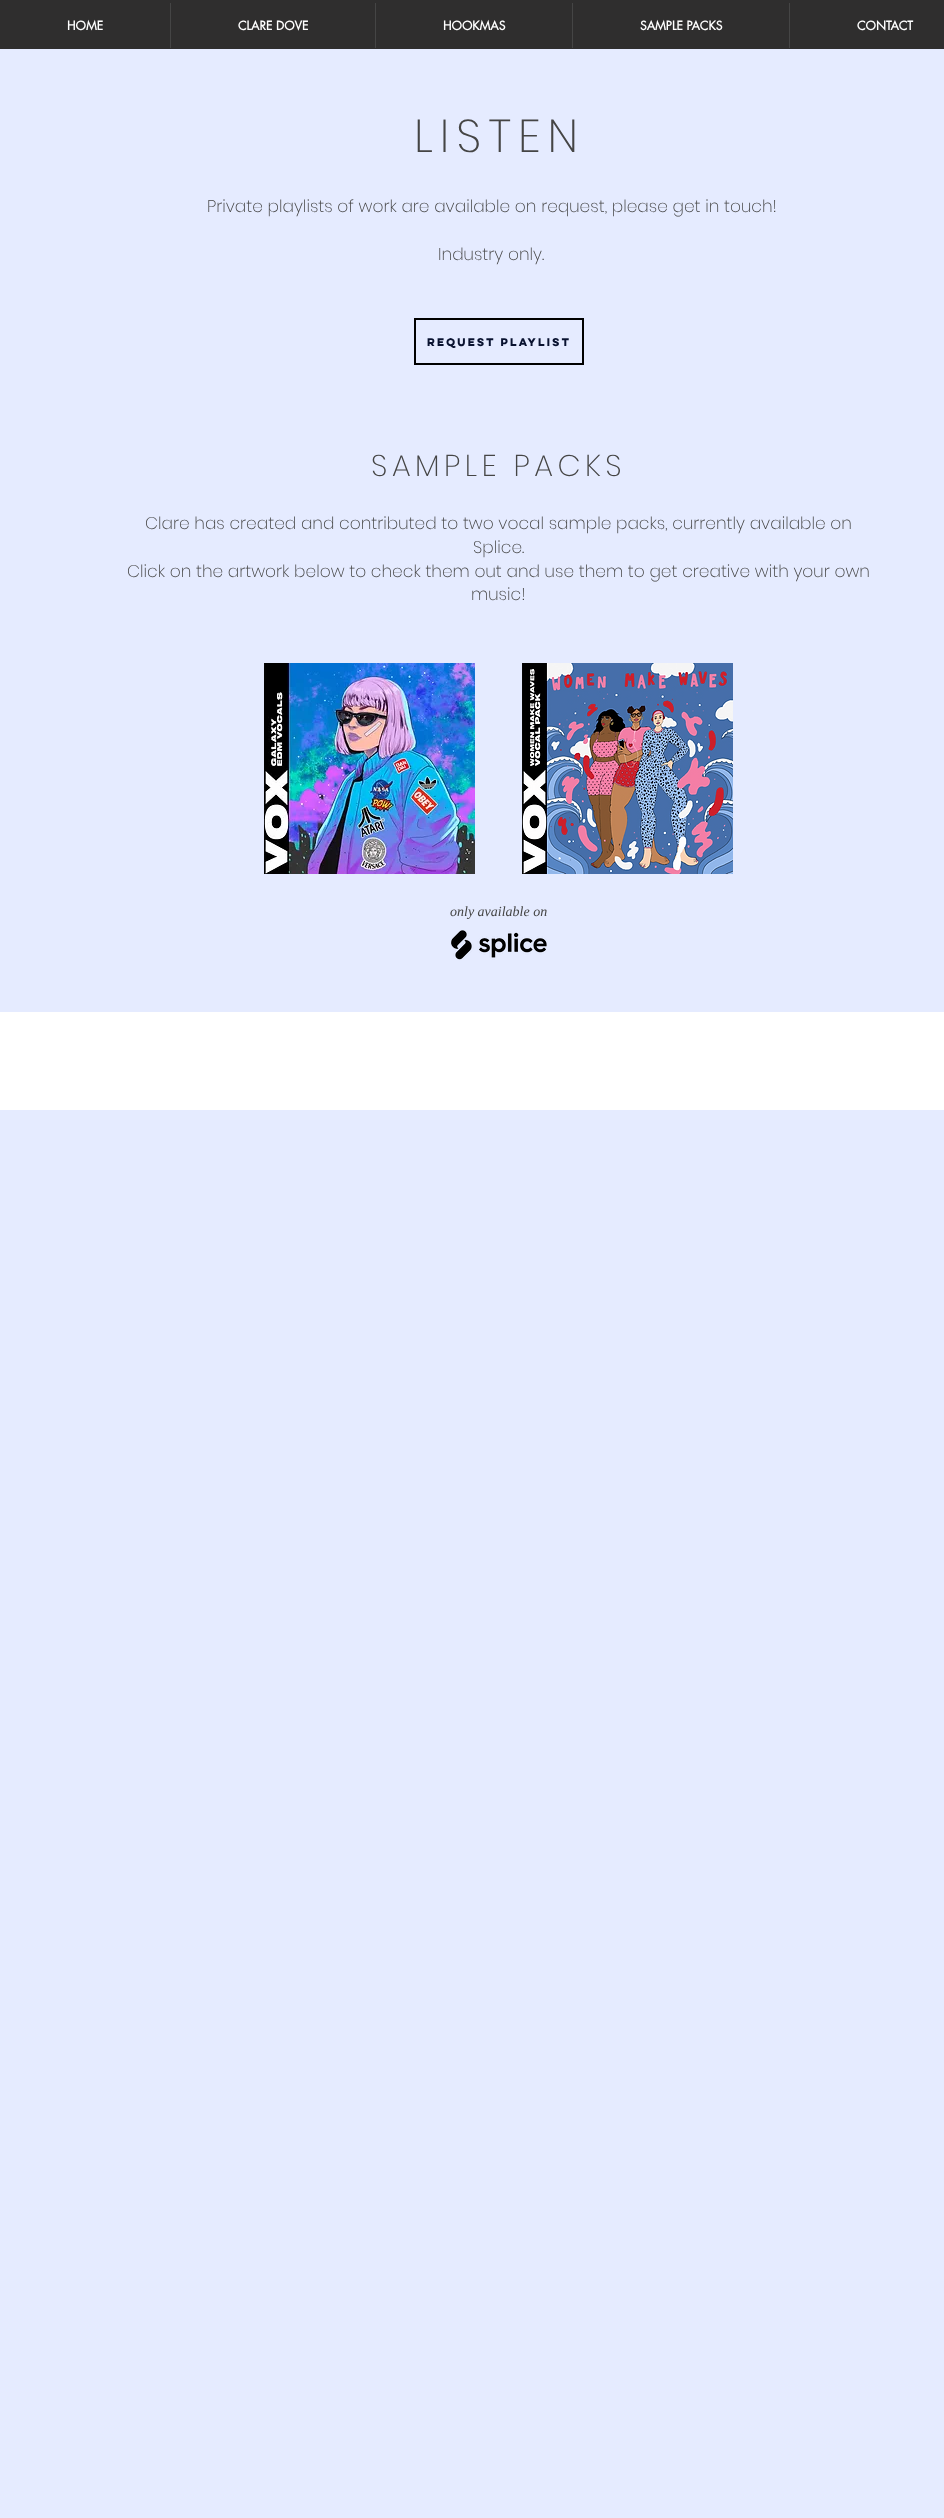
<?xml version="1.0" encoding="UTF-8"?>
<svg xmlns="http://www.w3.org/2000/svg" xmlns:xlink="http://www.w3.org/1999/xlink" width="944" height="2518">
  <rect width="100%" height="100%" fill="#e5ebff" />
  <rect width="944" height="49" fill="#2f2e2e" />
  <rect x="170" y="3" width="1" height="45" fill="#454545" />
  <rect x="375" y="3" width="1" height="45" fill="#454545" />
  <rect x="572" y="3" width="1" height="45" fill="#454545" />
  <rect x="789" y="3" width="1" height="45" fill="#454545" />
  <rect x="415" y="319" width="168" height="45" fill="none" stroke="#000000" stroke-width="2" />
  <image x="264" y="663" width="211" height="211" xlink:href="image1.png" />
  <image x="522" y="663" width="211" height="211" xlink:href="image2.png" />
  <image x="451" y="930" width="96" height="30" xlink:href="image3.png" />
  <rect y="1012" width="944" height="98" fill="#ffffff" />
  <text x="67" y="30" style="font-family: futura; font-size: 12px; font-weight: bold; fill: #ffffff">HOME</text>
  <text x="238" y="30" style="font-family: futura; font-size: 12px; font-weight: bold; fill: #ffffff">CLARE DOVE</text>
  <text x="443" y="30" style="font-family: futura; font-size: 12px; font-weight: bold; fill: #ffffff">HOOKMAS</text>
  <text x="640" y="30" style="font-family: futura; font-size: 12px; font-weight: bold; fill: #ffffff">SAMPLE PACKS</text>
  <text x="857" y="30" style="font-family: futura; font-size: 12px; font-weight: bold; fill: #ffffff">CONTACT</text>
  <text x="414" y="152" style="font-family: Poppins; font-size: 46px; font-weight: 200; letter-spacing: 7px; fill: #454545">LISTEN</text>
  <text x="207" y="212" style="font-family: Poppins; font-size: 17px; font-weight: 200; fill: #454545">Private playlists of work are available on request, please get in touch!</text>
  <text x="438" y="260" style="font-family: Poppins; font-size: 17px; font-weight: 200; fill: #454545">Industry only.</text>
  <text x="427" y="346" style="font-family: 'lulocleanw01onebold'; font-size: 10px; font-weight: bold; fill: #091230">Request Playlist</text>
  <text x="371" y="476" style="font-family: Poppins; font-size: 30px; font-weight: 200; letter-spacing: 4.5px; fill: #454545">SAMPLE PACKS</text>
  <text x="145" y="529" style="font-family: Poppins; font-size: 17px; font-weight: 200; fill: #454545">Clare has created and contributed to two vocal sample packs, currently available on</text>
  <text x="473" y="553" style="font-family: Poppins; font-size: 17px; font-weight: 200; fill: #454545">Splice.</text>
  <text x="127" y="577" style="font-family: Poppins; font-size: 17px; font-weight: 200; fill: #454545">Click on the artwork below to check them out and use them to get creative with your own</text>
  <text x="471" y="600" style="font-family: Poppins; font-size: 17px; font-weight: 200; fill: #454545">music!</text>
  <text x="450" y="916" style="font-family: Liberation Serif; font-size: 14px; font-style: italic; fill: #454545">only available on</text>
</svg>
